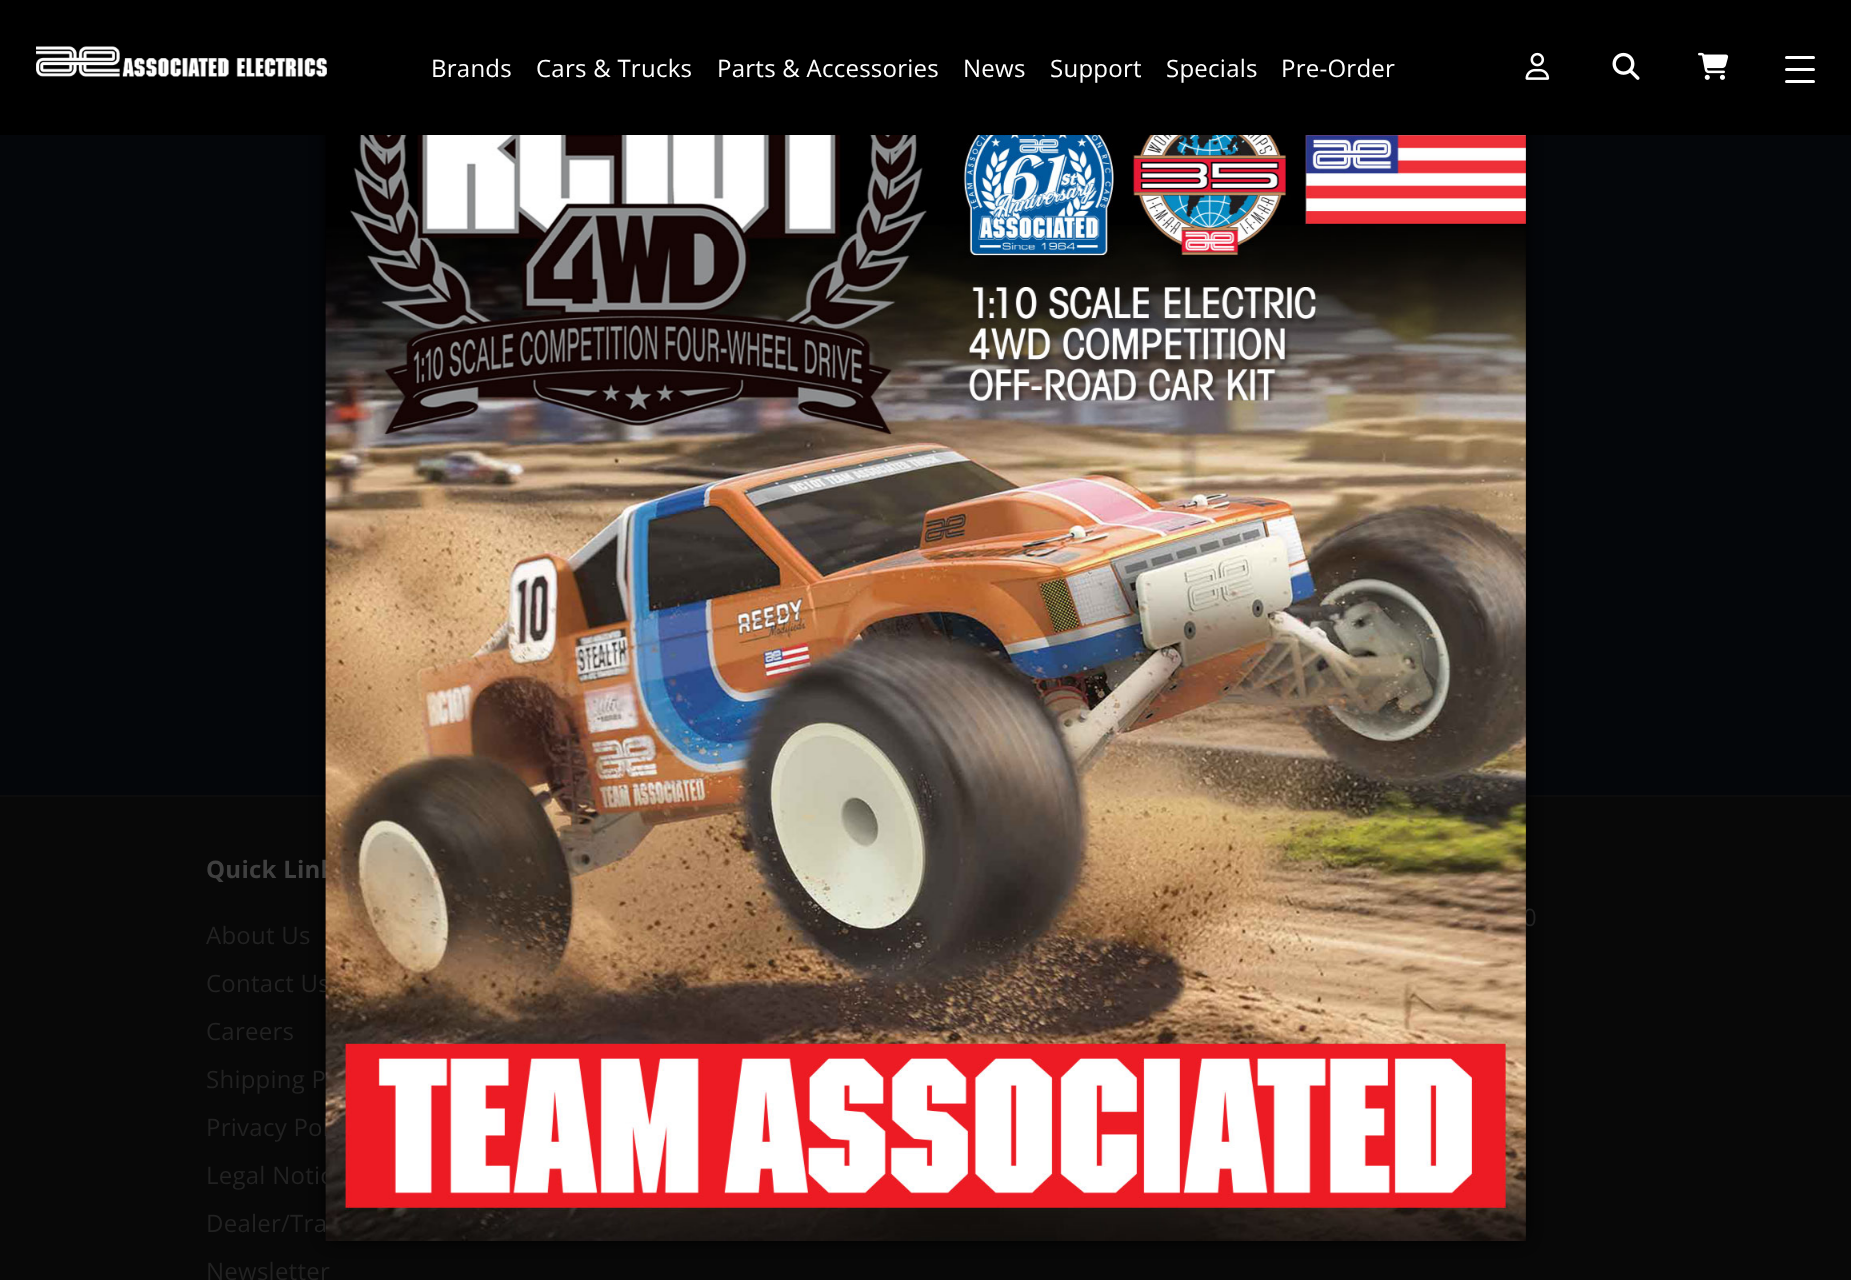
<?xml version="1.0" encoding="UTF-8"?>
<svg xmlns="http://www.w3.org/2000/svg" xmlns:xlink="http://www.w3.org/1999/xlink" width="1851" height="1280">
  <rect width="100%" height="100%" fill="#080808" />
  <rect y="135" width="1851" height="660" fill="#04060a" />
  <rect y="795" width="1851" height="2" fill="#0c0c0d" />
  <rect x="326" y="41" width="1200" height="1200" rx="12" fill="#000000" filter="blur(7.5px)" />
  <rect width="1851" height="135" fill="#000000" />
  <image x="36" y="46" width="291" height="31" xlink:href="image2.png" />
  <image x="1525" y="52" width="25" height="28" xlink:href="image3.png" />
  <image x="1612" y="52" width="28" height="28" xlink:href="image4.png" />
  <image x="1698" y="52" width="31" height="28" xlink:href="image5.png" />
  <rect x="1785" y="68" width="30" height="3" rx="1.5" fill="#ffffff" />
  <rect x="1785" y="56" width="30" height="3" rx="1.5" fill="#ffffff" />
  <rect x="1785" y="80" width="30" height="3" rx="1.5" fill="#ffffff" />
  <text x="431" y="77" style="font-family: Open Sans; font-size: 24px; letter-spacing: 0.25px; fill: #ffffff">Brands</text>
  <text x="536" y="77" style="font-family: Open Sans; font-size: 24px; letter-spacing: 0.25px; fill: #ffffff">Cars &amp; Trucks</text>
  <text x="717" y="77" style="font-family: Open Sans; font-size: 24px; letter-spacing: 0.25px; fill: #ffffff">Parts &amp; Accessories</text>
  <text x="963" y="77" style="font-family: Open Sans; font-size: 24px; letter-spacing: 0.25px; fill: #ffffff">News</text>
  <text x="1050" y="77" style="font-family: Open Sans; font-size: 24px; letter-spacing: 0.25px; fill: #ffffff">Support</text>
  <text x="1166" y="77" style="font-family: Open Sans; font-size: 24px; letter-spacing: 0.25px; fill: #ffffff">Specials</text>
  <text x="1281" y="77" style="font-family: Open Sans; font-size: 24px; letter-spacing: 0.25px; fill: #ffffff">Pre-Order</text>
  <text x="206" y="878" style="font-family: Open Sans; font-size: 24px; font-weight: bold; letter-spacing: 0.25px; fill: #404040">Quick Link</text>
  <text x="206" y="944" style="font-family: Open Sans; font-size: 24px; letter-spacing: 0.25px; fill: #222222">About Us</text>
  <text x="206" y="992" style="font-family: Open Sans; font-size: 24px; letter-spacing: 0.25px; fill: #222222">Contact Us</text>
  <text x="206" y="1040" style="font-family: Open Sans; font-size: 24px; letter-spacing: 0.25px; fill: #222222">Careers</text>
  <text x="206" y="1088" style="font-family: Open Sans; font-size: 24px; letter-spacing: 0.25px; fill: #222222">Shipping P</text>
  <text x="206" y="1136" style="font-family: Open Sans; font-size: 24px; letter-spacing: 0.25px; fill: #222222">Privacy Pol</text>
  <text x="206" y="1184" style="font-family: Open Sans; font-size: 24px; letter-spacing: 0.25px; fill: #222222">Legal Notic</text>
  <text x="206" y="1232" style="font-family: Open Sans; font-size: 24px; letter-spacing: 0.25px; fill: #222222">Dealer/Tra</text>
  <text x="206" y="1280" style="font-family: Open Sans; font-size: 24px; letter-spacing: 0.25px; fill: #222222">Newsletter</text>
  <text x="1523" y="926" style="font-family: Open Sans; font-size: 24px; letter-spacing: 0.25px; fill: #222222">0</text>
  <image x="325" y="135" width="1201" height="1106" xlink:href="image1.png" />
</svg>
